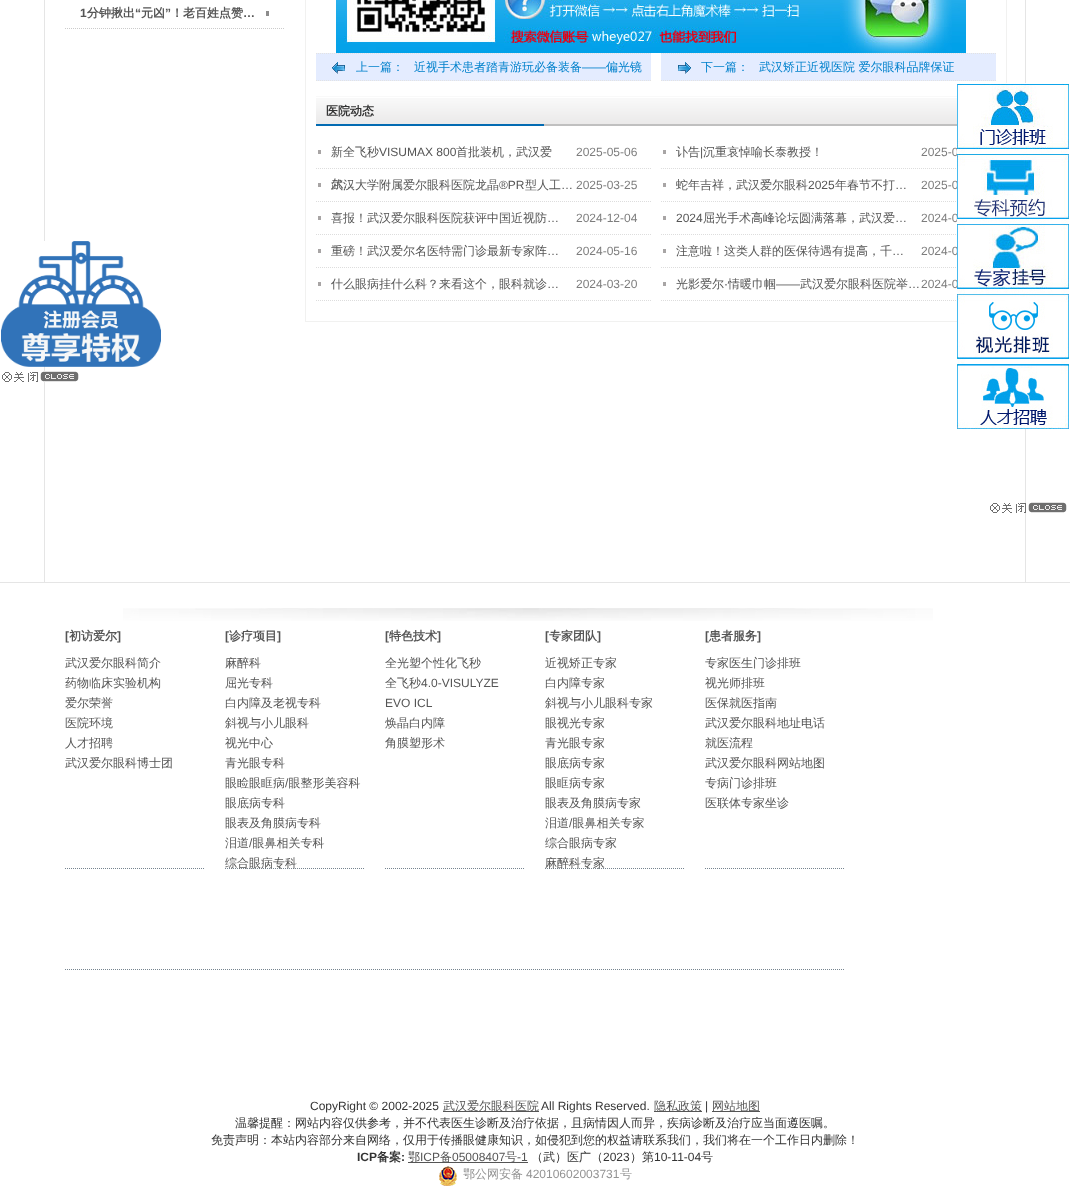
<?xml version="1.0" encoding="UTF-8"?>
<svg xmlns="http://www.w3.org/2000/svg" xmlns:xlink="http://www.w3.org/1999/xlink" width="1070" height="1196">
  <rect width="100%" height="100%" fill="#ffffff" />
  <rect x="1025" width="1" height="582" fill="#e5e5e5" />
  <rect x="44" width="1" height="582" fill="#e5e5e5" />
  <rect x="266" y="11" width="3" height="5" fill="#8d8c8c" />
  <path d="M 65 28.5 h 220" fill="none" stroke="#cbcbcb" stroke-dasharray="1 1" />
  <rect x="305.5" y="-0.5" width="701" height="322" fill="none" stroke="#f1f1f0" />
  <image x="336" y="0" width="630" height="53" xlink:href="image1.png" />
  <rect x="316" y="53" width="335" height="28" fill="#e4ecff" />
  <image x="332" y="62" width="13" height="12" xlink:href="image2.png" />
  <path d="M 316 53.5 h 335" fill="none" stroke="#e3e3e3" stroke-dasharray="1 1" />
  <path d="M 316 80.5 h 335" fill="none" stroke="#e3e3e3" stroke-dasharray="1 1" />
  <rect x="661" y="53" width="335" height="28" fill="#e4ecff" />
  <image x="678" y="62" width="13" height="12" xlink:href="image3.png" />
  <path d="M 661 53.5 h 335" fill="none" stroke="#e3e3e3" stroke-dasharray="1 1" />
  <path d="M 661 80.5 h 335" fill="none" stroke="#e3e3e3" stroke-dasharray="1 1" />
  <image x="316" y="96" width="641" height="30" xlink:href="image4.png" />
  <path d="M 316 168.5 h 335" fill="none" stroke="#dddddd" stroke-dasharray="1 1" />
  <rect x="318" y="150" width="3" height="4" fill="#a8a5a5" />
  <path d="M 661 168.5 h 335" fill="none" stroke="#dddddd" stroke-dasharray="1 1" />
  <rect x="663" y="150" width="3" height="4" fill="#a8a5a5" />
  <path d="M 316 201.5 h 335" fill="none" stroke="#dddddd" stroke-dasharray="1 1" />
  <rect x="318" y="183" width="3" height="4" fill="#a8a5a5" />
  <path d="M 661 201.5 h 335" fill="none" stroke="#dddddd" stroke-dasharray="1 1" />
  <rect x="663" y="183" width="3" height="4" fill="#a8a5a5" />
  <path d="M 316 234.5 h 335" fill="none" stroke="#dddddd" stroke-dasharray="1 1" />
  <rect x="318" y="216" width="3" height="4" fill="#a8a5a5" />
  <path d="M 661 234.5 h 335" fill="none" stroke="#dddddd" stroke-dasharray="1 1" />
  <rect x="663" y="216" width="3" height="4" fill="#a8a5a5" />
  <path d="M 316 267.5 h 335" fill="none" stroke="#dddddd" stroke-dasharray="1 1" />
  <rect x="318" y="249" width="3" height="4" fill="#a8a5a5" />
  <path d="M 661 267.5 h 335" fill="none" stroke="#dddddd" stroke-dasharray="1 1" />
  <rect x="663" y="249" width="3" height="4" fill="#a8a5a5" />
  <path d="M 316 300.5 h 335" fill="none" stroke="#dddddd" stroke-dasharray="1 1" />
  <rect x="318" y="282" width="3" height="4" fill="#a8a5a5" />
  <path d="M 661 300.5 h 335" fill="none" stroke="#dddddd" stroke-dasharray="1 1" />
  <rect x="663" y="282" width="3" height="4" fill="#a8a5a5" />
  <image x="990" y="502" width="77" height="11" xlink:href="image6.png" />
  <image x="1" y="241" width="160" height="126" xlink:href="image7.png" />
  <image x="2" y="371" width="77" height="11" xlink:href="image8.png" />
  <rect y="582" width="1070" height="1" fill="#e5e5e5" />
  <image x="123" y="608" width="810" height="13" xlink:href="image9.png" />
  <path d="M 65 868.5 h 140" fill="none" stroke="#76848f" stroke-dasharray="1 1" />
  <path d="M 225 868.5 h 140" fill="none" stroke="#76848f" stroke-dasharray="1 1" />
  <path d="M 385 868.5 h 140" fill="none" stroke="#76848f" stroke-dasharray="1 1" />
  <path d="M 545 868.5 h 140" fill="none" stroke="#76848f" stroke-dasharray="1 1" />
  <path d="M 705 868.5 h 140" fill="none" stroke="#76848f" stroke-dasharray="1 1" />
  <path d="M 65 969.5 h 780" fill="none" stroke="#76848f" stroke-dasharray="1 1" />
  <rect x="443" y="1111" width="96" height="1" fill="#555555" />
  <rect x="654" y="1111" width="48" height="1" fill="#555555" />
  <rect x="712" y="1111" width="48" height="1" fill="#555555" />
  <rect x="408" y="1162" width="120" height="1" fill="#555555" />
  <image x="439" y="1166" width="18" height="20" xlink:href="image10.png" />
  <text x="80" y="17" style="font-family: Liberation Sans; font-size: 12px; font-weight: bold; fill: #555555">1</text>
  <text x="87" y="17" style="font-family: WenQuanYi Zen Hei; font-size: 12px; font-weight: bold; fill: #555555">分钟揪出</text>
  <text x="135" y="17" style="font-family: Liberation Sans; font-size: 12px; font-weight: bold; fill: #555555">“</text>
  <text x="141" y="17" style="font-family: WenQuanYi Zen Hei; font-size: 12px; font-weight: bold; fill: #555555">元凶</text>
  <text x="165" y="17" style="font-family: Liberation Sans; font-size: 12px; font-weight: bold; fill: #555555">”</text>
  <text x="171" y="17" style="font-family: WenQuanYi Zen Hei; font-size: 12px; font-weight: bold; fill: #555555">！老百姓点赞</text>
  <text x="243" y="17" style="font-family: Liberation Sans; font-size: 12px; font-weight: bold; fill: #555555">…</text>
  <text x="356" y="71" style="font-family: WenQuanYi Zen Hei; font-size: 12px; font-weight: 500; fill: #0181cc">上一篇：</text>
  <text x="414" y="71" style="font-family: WenQuanYi Zen Hei; font-size: 12px; font-weight: 500; fill: #0181cc">近视手术患者踏青游玩必备装备</text>
  <text x="582" y="71" style="font-family: Liberation Sans; font-size: 12px; fill: #0181cc">——</text>
  <text x="606" y="71" style="font-family: WenQuanYi Zen Hei; font-size: 12px; font-weight: 500; fill: #0181cc">偏光镜</text>
  <text x="701" y="71" style="font-family: WenQuanYi Zen Hei; font-size: 12px; font-weight: 500; fill: #0181cc">下一篇：</text>
  <text x="759" y="71" style="font-family: WenQuanYi Zen Hei; font-size: 12px; font-weight: 500; fill: #0181cc">武汉矫正近视医院 爱尔眼科品牌保证</text>
  <text x="326" y="115" style="font-family: WenQuanYi Zen Hei; font-size: 12px; font-weight: bold; fill: #333333">医院动态</text>
  <text x="331" y="156" style="font-family: WenQuanYi Zen Hei; font-size: 12px; font-weight: 500; fill: #555555">新全飞秒</text>
  <text x="379" y="156" style="font-family: Liberation Sans; font-size: 12px; fill: #555555">VISUMAX 800</text>
  <text x="456" y="156" style="font-family: WenQuanYi Zen Hei; font-size: 12px; font-weight: 500; fill: #555555">首批装机，武汉爱</text>
  <text x="331" y="188" style="font-family: WenQuanYi Zen Hei; font-size: 12px; font-weight: 500; fill: #555555">尔</text>
  <text x="343" y="188" style="font-family: Liberation Sans; font-size: 12px; fill: #555555">…</text>
  <text x="576" y="156" style="font-family: Liberation Sans; font-size: 12px; fill: #7d7d7d">2025-05-06</text>
  <text x="676" y="156" style="font-family: WenQuanYi Zen Hei; font-size: 12px; font-weight: 500; fill: #555555">讣告</text>
  <text x="700" y="156" style="font-family: Liberation Sans; font-size: 12px; fill: #555555">|</text>
  <text x="703" y="156" style="font-family: WenQuanYi Zen Hei; font-size: 12px; font-weight: 500; fill: #555555">沉重哀悼喻长泰教授！</text>
  <text x="921" y="156" style="font-family: Liberation Sans; font-size: 12px; fill: #7d7d7d">2025-0</text>
  <text x="331" y="189" style="font-family: WenQuanYi Zen Hei; font-size: 12px; font-weight: 500; fill: #555555">武汉大学附属爱尔眼科医院龙晶</text>
  <text x="499" y="189" style="font-family: Liberation Sans; font-size: 12px; fill: #555555">®PR</text>
  <text x="525" y="189" style="font-family: WenQuanYi Zen Hei; font-size: 12px; font-weight: 500; fill: #555555">型人工</text>
  <text x="561" y="189" style="font-family: Liberation Sans; font-size: 12px; fill: #555555">…</text>
  <text x="576" y="189" style="font-family: Liberation Sans; font-size: 12px; fill: #7d7d7d">2025-03-25</text>
  <text x="676" y="189" style="font-family: WenQuanYi Zen Hei; font-size: 12px; font-weight: 500; fill: #555555">蛇年吉祥，武汉爱尔眼科</text>
  <text x="808" y="189" style="font-family: Liberation Sans; font-size: 12px; fill: #555555">2025</text>
  <text x="835" y="189" style="font-family: WenQuanYi Zen Hei; font-size: 12px; font-weight: 500; fill: #555555">年春节不打</text>
  <text x="895" y="189" style="font-family: Liberation Sans; font-size: 12px; fill: #555555">…</text>
  <text x="921" y="189" style="font-family: Liberation Sans; font-size: 12px; fill: #7d7d7d">2025-0</text>
  <text x="331" y="222" style="font-family: WenQuanYi Zen Hei; font-size: 12px; font-weight: 500; fill: #555555">喜报！武汉爱尔眼科医院获评中国近视防</text>
  <text x="547" y="222" style="font-family: Liberation Sans; font-size: 12px; fill: #555555">…</text>
  <text x="576" y="222" style="font-family: Liberation Sans; font-size: 12px; fill: #7d7d7d">2024-12-04</text>
  <text x="676" y="222" style="font-family: Liberation Sans; font-size: 12px; fill: #555555">2024</text>
  <text x="703" y="222" style="font-family: WenQuanYi Zen Hei; font-size: 12px; font-weight: 500; fill: #555555">屈光手术高峰论坛圆满落幕，武汉爱</text>
  <text x="895" y="222" style="font-family: Liberation Sans; font-size: 12px; fill: #555555">…</text>
  <text x="921" y="222" style="font-family: Liberation Sans; font-size: 12px; fill: #7d7d7d">2024-0</text>
  <text x="331" y="255" style="font-family: WenQuanYi Zen Hei; font-size: 12px; font-weight: 500; fill: #555555">重磅！武汉爱尔名医特需门诊最新专家阵</text>
  <text x="547" y="255" style="font-family: Liberation Sans; font-size: 12px; fill: #555555">…</text>
  <text x="576" y="255" style="font-family: Liberation Sans; font-size: 12px; fill: #7d7d7d">2024-05-16</text>
  <text x="676" y="255" style="font-family: WenQuanYi Zen Hei; font-size: 12px; font-weight: 500; fill: #555555">注意啦！这类人群的医保待遇有提高，千</text>
  <text x="892" y="255" style="font-family: Liberation Sans; font-size: 12px; fill: #555555">…</text>
  <text x="921" y="255" style="font-family: Liberation Sans; font-size: 12px; fill: #7d7d7d">2024-0</text>
  <text x="331" y="288" style="font-family: WenQuanYi Zen Hei; font-size: 12px; font-weight: 500; fill: #555555">什么眼病挂什么科？来看这个，眼科就诊</text>
  <text x="547" y="288" style="font-family: Liberation Sans; font-size: 12px; fill: #555555">…</text>
  <text x="576" y="288" style="font-family: Liberation Sans; font-size: 12px; fill: #7d7d7d">2024-03-20</text>
  <text x="676" y="288" style="font-family: WenQuanYi Zen Hei; font-size: 12px; font-weight: 500; fill: #555555">光影爱尔</text>
  <text x="724" y="288" style="font-family: Liberation Sans; font-size: 12px; fill: #555555">·</text>
  <text x="728" y="288" style="font-family: WenQuanYi Zen Hei; font-size: 12px; font-weight: 500; fill: #555555">情暖巾帼</text>
  <text x="776" y="288" style="font-family: Liberation Sans; font-size: 12px; fill: #555555">——</text>
  <text x="800" y="288" style="font-family: WenQuanYi Zen Hei; font-size: 12px; font-weight: 500; fill: #555555">武汉爱尔眼科医院举</text>
  <text x="908" y="288" style="font-family: Liberation Sans; font-size: 12px; fill: #555555">…</text>
  <text x="921" y="288" style="font-family: Liberation Sans; font-size: 12px; fill: #7d7d7d">2024-0</text>
  <image x="957" y="83" width="112" height="346" xlink:href="image5.png" />
  <text x="65" y="640" style="font-family: Liberation Sans; font-size: 12px; font-weight: bold; fill: #555555">[</text>
  <text x="69" y="640" style="font-family: WenQuanYi Zen Hei; font-size: 12px; font-weight: bold; fill: #555555">初访爱尔</text>
  <text x="117" y="640" style="font-family: Liberation Sans; font-size: 12px; font-weight: bold; fill: #555555">]</text>
  <text x="65" y="667" style="font-family: WenQuanYi Zen Hei; font-size: 12px; font-weight: 500; fill: #555555">武汉爱尔眼科简介</text>
  <text x="65" y="687" style="font-family: WenQuanYi Zen Hei; font-size: 12px; font-weight: 500; fill: #555555">药物临床实验机构</text>
  <text x="65" y="707" style="font-family: WenQuanYi Zen Hei; font-size: 12px; font-weight: 500; fill: #555555">爱尔荣誉</text>
  <text x="65" y="727" style="font-family: WenQuanYi Zen Hei; font-size: 12px; font-weight: 500; fill: #555555">医院环境</text>
  <text x="65" y="747" style="font-family: WenQuanYi Zen Hei; font-size: 12px; font-weight: 500; fill: #555555">人才招聘</text>
  <text x="65" y="767" style="font-family: WenQuanYi Zen Hei; font-size: 12px; font-weight: 500; fill: #555555">武汉爱尔眼科博士团</text>
  <text x="225" y="640" style="font-family: Liberation Sans; font-size: 12px; font-weight: bold; fill: #555555">[</text>
  <text x="229" y="640" style="font-family: WenQuanYi Zen Hei; font-size: 12px; font-weight: bold; fill: #555555">诊疗项目</text>
  <text x="277" y="640" style="font-family: Liberation Sans; font-size: 12px; font-weight: bold; fill: #555555">]</text>
  <text x="225" y="667" style="font-family: WenQuanYi Zen Hei; font-size: 12px; font-weight: 500; fill: #555555">麻醉科</text>
  <text x="225" y="687" style="font-family: WenQuanYi Zen Hei; font-size: 12px; font-weight: 500; fill: #555555">屈光专科</text>
  <text x="225" y="707" style="font-family: WenQuanYi Zen Hei; font-size: 12px; font-weight: 500; fill: #555555">白内障及老视专科</text>
  <text x="225" y="727" style="font-family: WenQuanYi Zen Hei; font-size: 12px; font-weight: 500; fill: #555555">斜视与小儿眼科</text>
  <text x="225" y="747" style="font-family: WenQuanYi Zen Hei; font-size: 12px; font-weight: 500; fill: #555555">视光中心</text>
  <text x="225" y="767" style="font-family: WenQuanYi Zen Hei; font-size: 12px; font-weight: 500; fill: #555555">青光眼专科</text>
  <text x="225" y="787" style="font-family: WenQuanYi Zen Hei; font-size: 12px; font-weight: 500; fill: #555555">眼睑眼眶病 眼整形美容科</text>
  <text x="285" y="787" style="font-family: Liberation Sans; font-size: 12px; fill: #555555">/</text>
  <text x="225" y="807" style="font-family: WenQuanYi Zen Hei; font-size: 12px; font-weight: 500; fill: #555555">眼底病专科</text>
  <text x="225" y="827" style="font-family: WenQuanYi Zen Hei; font-size: 12px; font-weight: 500; fill: #555555">眼表及角膜病专科</text>
  <text x="225" y="847" style="font-family: WenQuanYi Zen Hei; font-size: 12px; font-weight: 500; fill: #555555">泪道 眼鼻相关专科</text>
  <text x="249" y="847" style="font-family: Liberation Sans; font-size: 12px; fill: #555555">/</text>
  <text x="225" y="867" style="font-family: WenQuanYi Zen Hei; font-size: 12px; font-weight: 500; fill: #555555">综合眼病专科</text>
  <text x="385" y="640" style="font-family: Liberation Sans; font-size: 12px; font-weight: bold; fill: #555555">[</text>
  <text x="389" y="640" style="font-family: WenQuanYi Zen Hei; font-size: 12px; font-weight: bold; fill: #555555">特色技术</text>
  <text x="437" y="640" style="font-family: Liberation Sans; font-size: 12px; font-weight: bold; fill: #555555">]</text>
  <text x="385" y="667" style="font-family: WenQuanYi Zen Hei; font-size: 12px; font-weight: 500; fill: #555555">全光塑个性化飞秒</text>
  <text x="385" y="687" style="font-family: WenQuanYi Zen Hei; font-size: 12px; font-weight: 500; fill: #555555">全飞秒</text>
  <text x="421" y="687" style="font-family: Liberation Sans; font-size: 12px; fill: #555555">4.0-VISULYZE</text>
  <text x="385" y="707" style="font-family: Liberation Sans; font-size: 12px; fill: #555555">EVO ICL</text>
  <text x="385" y="727" style="font-family: WenQuanYi Zen Hei; font-size: 12px; font-weight: 500; fill: #555555">焕晶白内障</text>
  <text x="385" y="747" style="font-family: WenQuanYi Zen Hei; font-size: 12px; font-weight: 500; fill: #555555">角膜塑形术</text>
  <text x="545" y="640" style="font-family: Liberation Sans; font-size: 12px; font-weight: bold; fill: #555555">[</text>
  <text x="549" y="640" style="font-family: WenQuanYi Zen Hei; font-size: 12px; font-weight: bold; fill: #555555">专家团队</text>
  <text x="597" y="640" style="font-family: Liberation Sans; font-size: 12px; font-weight: bold; fill: #555555">]</text>
  <text x="545" y="667" style="font-family: WenQuanYi Zen Hei; font-size: 12px; font-weight: 500; fill: #555555">近视矫正专家</text>
  <text x="545" y="687" style="font-family: WenQuanYi Zen Hei; font-size: 12px; font-weight: 500; fill: #555555">白内障专家</text>
  <text x="545" y="707" style="font-family: WenQuanYi Zen Hei; font-size: 12px; font-weight: 500; fill: #555555">斜视与小儿眼科专家</text>
  <text x="545" y="727" style="font-family: WenQuanYi Zen Hei; font-size: 12px; font-weight: 500; fill: #555555">眼视光专家</text>
  <text x="545" y="747" style="font-family: WenQuanYi Zen Hei; font-size: 12px; font-weight: 500; fill: #555555">青光眼专家</text>
  <text x="545" y="767" style="font-family: WenQuanYi Zen Hei; font-size: 12px; font-weight: 500; fill: #555555">眼底病专家</text>
  <text x="545" y="787" style="font-family: WenQuanYi Zen Hei; font-size: 12px; font-weight: 500; fill: #555555">眼眶病专家</text>
  <text x="545" y="807" style="font-family: WenQuanYi Zen Hei; font-size: 12px; font-weight: 500; fill: #555555">眼表及角膜病专家</text>
  <text x="545" y="827" style="font-family: WenQuanYi Zen Hei; font-size: 12px; font-weight: 500; fill: #555555">泪道 眼鼻相关专家</text>
  <text x="569" y="827" style="font-family: Liberation Sans; font-size: 12px; fill: #555555">/</text>
  <text x="545" y="847" style="font-family: WenQuanYi Zen Hei; font-size: 12px; font-weight: 500; fill: #555555">综合眼病专家</text>
  <text x="545" y="867" style="font-family: WenQuanYi Zen Hei; font-size: 12px; font-weight: 500; fill: #555555">麻醉科专家</text>
  <text x="705" y="640" style="font-family: Liberation Sans; font-size: 12px; font-weight: bold; fill: #555555">[</text>
  <text x="709" y="640" style="font-family: WenQuanYi Zen Hei; font-size: 12px; font-weight: bold; fill: #555555">患者服务</text>
  <text x="757" y="640" style="font-family: Liberation Sans; font-size: 12px; font-weight: bold; fill: #555555">]</text>
  <text x="705" y="667" style="font-family: WenQuanYi Zen Hei; font-size: 12px; font-weight: 500; fill: #555555">专家医生门诊排班</text>
  <text x="705" y="687" style="font-family: WenQuanYi Zen Hei; font-size: 12px; font-weight: 500; fill: #555555">视光师排班</text>
  <text x="705" y="707" style="font-family: WenQuanYi Zen Hei; font-size: 12px; font-weight: 500; fill: #555555">医保就医指南</text>
  <text x="705" y="727" style="font-family: WenQuanYi Zen Hei; font-size: 12px; font-weight: 500; fill: #555555">武汉爱尔眼科地址电话</text>
  <text x="705" y="747" style="font-family: WenQuanYi Zen Hei; font-size: 12px; font-weight: 500; fill: #555555">就医流程</text>
  <text x="705" y="767" style="font-family: WenQuanYi Zen Hei; font-size: 12px; font-weight: 500; fill: #555555">武汉爱尔眼科网站地图</text>
  <text x="705" y="787" style="font-family: WenQuanYi Zen Hei; font-size: 12px; font-weight: 500; fill: #555555">专病门诊排班</text>
  <text x="705" y="807" style="font-family: WenQuanYi Zen Hei; font-size: 12px; font-weight: 500; fill: #555555">医联体专家坐诊</text>
  <text x="310" y="1110" style="font-family: Liberation Sans; font-size: 12px; fill: #333333">CopyRight © 2002-2025</text>
  <text x="443" y="1110" style="font-family: WenQuanYi Zen Hei; font-size: 12px; font-weight: 500; fill: #555555">武汉爱尔眼科医院</text>
  <text x="541" y="1110" style="font-family: Liberation Sans; font-size: 12px; fill: #333333">All Rights Reserved.</text>
  <text x="654" y="1110" style="font-family: WenQuanYi Zen Hei; font-size: 12px; font-weight: 500; fill: #555555">隐私政策</text>
  <text x="705" y="1110" style="font-family: Liberation Sans; font-size: 12px; fill: #333333">|</text>
  <text x="712" y="1110" style="font-family: WenQuanYi Zen Hei; font-size: 12px; font-weight: 500; fill: #555555">网站地图</text>
  <text x="235" y="1127" style="font-family: WenQuanYi Zen Hei; font-size: 12px; font-weight: 500; fill: #333333">温馨提醒：网站内容仅供参考，并不代表医生诊断及治疗依据，且病情因人而异，疾病诊断及治疗应当面遵医嘱。</text>
  <text x="211" y="1144" style="font-family: WenQuanYi Zen Hei; font-size: 12px; font-weight: 500; fill: #333333">免责声明：本站内容部分来自网络，仅用于传播眼健康知识，如侵犯到您的权益请联系我们，我们将在一个工作日内删除！</text>
  <text x="357" y="1161" style="font-family: Liberation Sans; font-size: 12px; font-weight: bold; fill: #333333">ICP</text>
  <text x="377" y="1161" style="font-family: WenQuanYi Zen Hei; font-size: 12px; font-weight: bold; fill: #333333">备案</text>
  <text x="401" y="1161" style="font-family: Liberation Sans; font-size: 12px; font-weight: bold; fill: #333333">:</text>
  <text x="408" y="1161" style="font-family: WenQuanYi Zen Hei; font-size: 12px; font-weight: 500; fill: #555555">鄂</text>
  <text x="420" y="1161" style="font-family: Liberation Sans; font-size: 12px; fill: #555555">ICP</text>
  <text x="440" y="1161" style="font-family: WenQuanYi Zen Hei; font-size: 12px; font-weight: 500; fill: #555555">备</text>
  <text x="452" y="1161" style="font-family: Liberation Sans; font-size: 12px; fill: #555555">05008407</text>
  <text x="505" y="1161" style="font-family: WenQuanYi Zen Hei; font-size: 12px; font-weight: 500; fill: #555555">号</text>
  <text x="517" y="1161" style="font-family: Liberation Sans; font-size: 12px; fill: #555555">-1</text>
  <text x="531" y="1161" style="font-family: WenQuanYi Zen Hei; font-size: 12px; font-weight: 500; fill: #333333">（武）医广（</text>
  <text x="603" y="1161" style="font-family: Liberation Sans; font-size: 12px; fill: #333333">2023</text>
  <text x="630" y="1161" style="font-family: WenQuanYi Zen Hei; font-size: 12px; font-weight: 500; fill: #333333">）第</text>
  <text x="654" y="1161" style="font-family: Liberation Sans; font-size: 12px; fill: #333333">10-11-04</text>
  <text x="701" y="1161" style="font-family: WenQuanYi Zen Hei; font-size: 12px; font-weight: 500; fill: #333333">号</text>
  <text x="463" y="1178" style="font-family: WenQuanYi Zen Hei; font-size: 12px; font-weight: 500; fill: #939393">鄂公网安备</text>
  <text x="526" y="1178" style="font-family: Liberation Sans; font-size: 12px; fill: #939393">42010602003731</text>
  <text x="620" y="1178" style="font-family: WenQuanYi Zen Hei; font-size: 12px; font-weight: 500; fill: #939393">号</text>
</svg>
